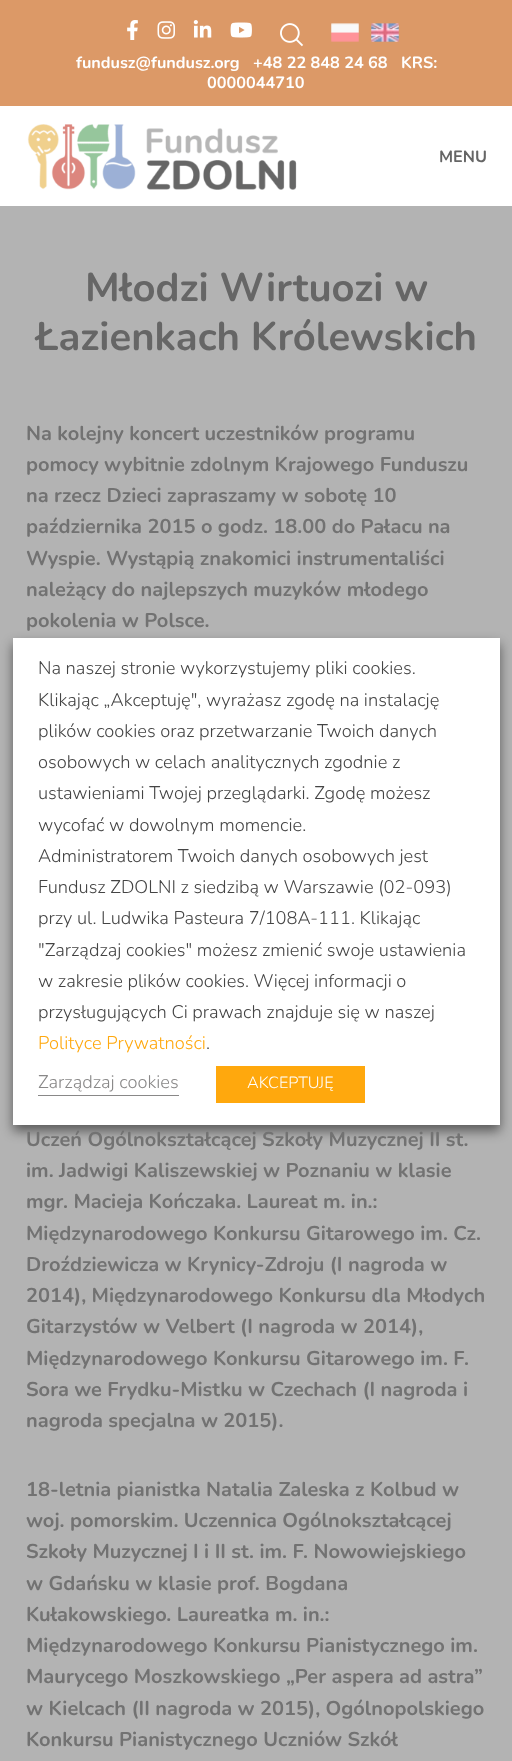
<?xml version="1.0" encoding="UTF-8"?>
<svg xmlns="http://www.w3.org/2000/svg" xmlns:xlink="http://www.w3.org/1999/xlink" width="512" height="1761">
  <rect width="100%" height="100%" fill="#b3b3b3" />
  <rect width="512" height="106" fill="#dc9967" />
  <image x="127" y="20" width="11" height="20" xlink:href="image1.png" />
  <image x="157" y="21" width="18" height="18" xlink:href="image2.png" />
  <image x="193" y="20" width="19" height="18" xlink:href="image3.png" />
  <image x="230" y="22" width="22" height="16" xlink:href="image4.png" />
  <image x="280" y="23" width="24" height="24" xlink:href="image5.png" />
  <image x="331" y="23" width="28" height="19" xlink:href="image6.png" />
  <image x="371" y="23" width="28" height="19" xlink:href="image7.png" />
  <rect y="106" width="512" height="100" fill="#ffffff" />
  <image x="27" y="124" width="270" height="66" xlink:href="image8.png" />
  <rect x="13" y="644" width="487" height="487" fill="#000000" fill-opacity="0.5" filter="blur(6px)" />
  <rect x="13" y="638" width="487" height="487" fill="#ffffff" />
  <rect x="38" y="1095" width="141" height="1" fill="#898888" />
  <rect x="216" y="1066" width="149" height="37" fill="#ffa80d" />
  <text x="76" y="68" style="font-family: Nunito; font-size: 16.25px; font-weight: bold; fill: #ffffff">fundusz@fundusz.org</text>
  <text x="253" y="68" style="font-family: Nunito; font-size: 16.25px; font-weight: bold; fill: #ffffff">+48 22 848 24 68</text>
  <text x="401" y="68" style="font-family: Nunito; font-size: 16.25px; font-weight: bold; fill: #ffffff">KRS:</text>
  <text x="207" y="88" style="font-family: Nunito; font-size: 16.25px; font-weight: bold; fill: #ffffff">0000044710</text>
  <text x="439" y="162" style="font-family: Nunito; font-size: 16.25px; font-weight: bold; fill: #666666">MENU</text>
  <text x="85" y="301" style="font-family: Nunito; font-size: 40px; font-weight: bold; fill: #666666">Młodzi Wirtuozi w</text>
  <text x="36" y="350" style="font-family: Nunito; font-size: 40px; font-weight: bold; fill: #666666">Łazienkach Królewskich</text>
  <text x="26" y="440" style="font-family: Nunito; font-size: 20px; font-weight: bold; fill: #727272">Na kolejny koncert uczestników programu</text>
  <text x="26" y="471" style="font-family: Nunito; font-size: 20px; font-weight: bold; fill: #727272">pomocy wybitnie zdolnym Krajowego Funduszu</text>
  <text x="26" y="502" style="font-family: Nunito; font-size: 20px; font-weight: bold; fill: #727272">na rzecz Dzieci zapraszamy w sobotę 10</text>
  <text x="26" y="533" style="font-family: Nunito; font-size: 20px; font-weight: bold; fill: #727272">października 2015 o godz. 18.00 do Pałacu na</text>
  <text x="26" y="565" style="font-family: Nunito; font-size: 20px; font-weight: bold; fill: #727272">Wyspie. Wystąpią znakomici instrumentaliści</text>
  <text x="26" y="596" style="font-family: Nunito; font-size: 20px; font-weight: bold; fill: #727272">należący do najlepszych muzyków młodego</text>
  <text x="26" y="627" style="font-family: Nunito; font-size: 20px; font-weight: bold; fill: #727272">pokolenia w Polsce.</text>
  <text x="26" y="1146" style="font-family: Nunito; font-size: 20px; font-weight: bold; fill: #727272">Uczeń Ogólnokształcącej Szkoły Muzycznej II st.</text>
  <text x="26" y="1177" style="font-family: Nunito; font-size: 20px; font-weight: bold; fill: #727272">im. Jadwigi Kaliszewskiej w Poznaniu w klasie</text>
  <text x="26" y="1208" style="font-family: Nunito; font-size: 20px; font-weight: bold; fill: #727272">mgr. Macieja Kończaka. Laureat m. in.:</text>
  <text x="26" y="1240" style="font-family: Nunito; font-size: 20px; font-weight: bold; fill: #727272">Międzynarodowego Konkursu Gitarowego im. Cz.</text>
  <text x="26" y="1271" style="font-family: Nunito; font-size: 20px; font-weight: bold; fill: #727272">Droździewicza w Krynicy-Zdroju (I nagroda w</text>
  <text x="26" y="1302" style="font-family: Nunito; font-size: 20px; font-weight: bold; fill: #727272">2014), Międzynarodowego Konkursu dla Młodych</text>
  <text x="26" y="1333" style="font-family: Nunito; font-size: 20px; font-weight: bold; fill: #727272">Gitarzystów w Velbert (I nagroda w 2014),</text>
  <text x="26" y="1365" style="font-family: Nunito; font-size: 20px; font-weight: bold; fill: #727272">Międzynarodowego Konkursu Gitarowego im. F.</text>
  <text x="26" y="1396" style="font-family: Nunito; font-size: 20px; font-weight: bold; fill: #727272">Sora we Frydku-Mistku w Czechach (I nagroda i</text>
  <text x="26" y="1427" style="font-family: Nunito; font-size: 20px; font-weight: bold; fill: #727272">nagroda specjalna w 2015).</text>
  <text x="26" y="1496" style="font-family: Nunito; font-size: 20px; font-weight: bold; fill: #727272">18-letnia pianistka Natalia Zaleska z Kolbud w</text>
  <text x="26" y="1527" style="font-family: Nunito; font-size: 20px; font-weight: bold; fill: #727272">woj. pomorskim. Uczennica Ogólnokształcącej</text>
  <text x="26" y="1558" style="font-family: Nunito; font-size: 20px; font-weight: bold; fill: #727272">Szkoły Muzycznej I i II st. im. F. Nowowiejskiego</text>
  <text x="26" y="1590" style="font-family: Nunito; font-size: 20px; font-weight: bold; fill: #727272">w Gdańsku w klasie prof. Bogdana</text>
  <text x="26" y="1621" style="font-family: Nunito; font-size: 20px; font-weight: bold; fill: #727272">Kułakowskiego. Laureatka m. in.:</text>
  <text x="26" y="1652" style="font-family: Nunito; font-size: 20px; font-weight: bold; fill: #727272">Międzynarodowego Konkursu Pianistycznego im.</text>
  <text x="26" y="1683" style="font-family: Nunito; font-size: 20px; font-weight: bold; fill: #727272">Maurycego Moszkowskiego „Per aspera ad astra”</text>
  <text x="26" y="1715" style="font-family: Nunito; font-size: 20px; font-weight: bold; fill: #727272">w Kielcach (II nagroda w 2015), Ogólnopolskiego</text>
  <text x="26" y="1746" style="font-family: Nunito; font-size: 20px; font-weight: bold; fill: #727272">Konkursu Pianistycznego Uczniów Szkół</text>
  <text x="38" y="674" style="font-family: Nunito; font-size: 18.3px; font-weight: 300; fill: #444444">Na naszej stronie wykorzystujemy pliki cookies.</text>
  <text x="38" y="706" style="font-family: Nunito; font-size: 18.3px; font-weight: 300; fill: #444444">Klikając „Akceptuję", wyrażasz zgodę na instalację</text>
  <text x="38" y="737" style="font-family: Nunito; font-size: 18.3px; font-weight: 300; fill: #444444">plików cookies oraz przetwarzanie Twoich danych</text>
  <text x="38" y="768" style="font-family: Nunito; font-size: 18.3px; font-weight: 300; fill: #444444">osobowych w celach analitycznych zgodnie z</text>
  <text x="38" y="799" style="font-family: Nunito; font-size: 18.3px; font-weight: 300; fill: #444444">ustawieniami Twojej przeglądarki. Zgodę możesz</text>
  <text x="38" y="831" style="font-family: Nunito; font-size: 18.3px; font-weight: 300; fill: #444444">wycofać w dowolnym momencie.</text>
  <text x="38" y="862" style="font-family: Nunito; font-size: 18.3px; font-weight: 300; fill: #444444">Administratorem Twoich danych osobowych jest</text>
  <text x="38" y="893" style="font-family: Nunito; font-size: 18.3px; font-weight: 300; fill: #444444">Fundusz ZDOLNI z siedzibą w Warszawie (02-093)</text>
  <text x="38" y="924" style="font-family: Nunito; font-size: 18.3px; font-weight: 300; fill: #444444">przy ul. Ludwika Pasteura 7/108A-111. Klikając</text>
  <text x="38" y="956" style="font-family: Nunito; font-size: 18.3px; font-weight: 300; fill: #444444">"Zarządzaj cookies" możesz zmienić swoje ustawienia</text>
  <text x="38" y="987" style="font-family: Nunito; font-size: 18.3px; font-weight: 300; fill: #444444">w zakresie plików cookies. Więcej informacji o</text>
  <text x="38" y="1018" style="font-family: Nunito; font-size: 18.3px; font-weight: 300; fill: #444444">przysługujących Ci prawach znajduje się w naszej</text>
  <text x="38" y="1049" style="font-family: Nunito; font-size: 18.3px; font-weight: 300; fill: #ffa80d">Polityce Prywatności</text>
  <text x="206" y="1049" style="font-family: Nunito; font-size: 18.3px; font-weight: 300; fill: #444444">.</text>
  <text x="38" y="1088" style="font-family: Nunito; font-size: 18.3px; font-weight: 300; fill: #898888">Zarządzaj cookies</text>
  <text x="247" y="1088" style="font-family: Nunito; font-size: 16.25px; font-weight: 300; fill: #ffffff">AKCEPTUJĘ</text>
</svg>
